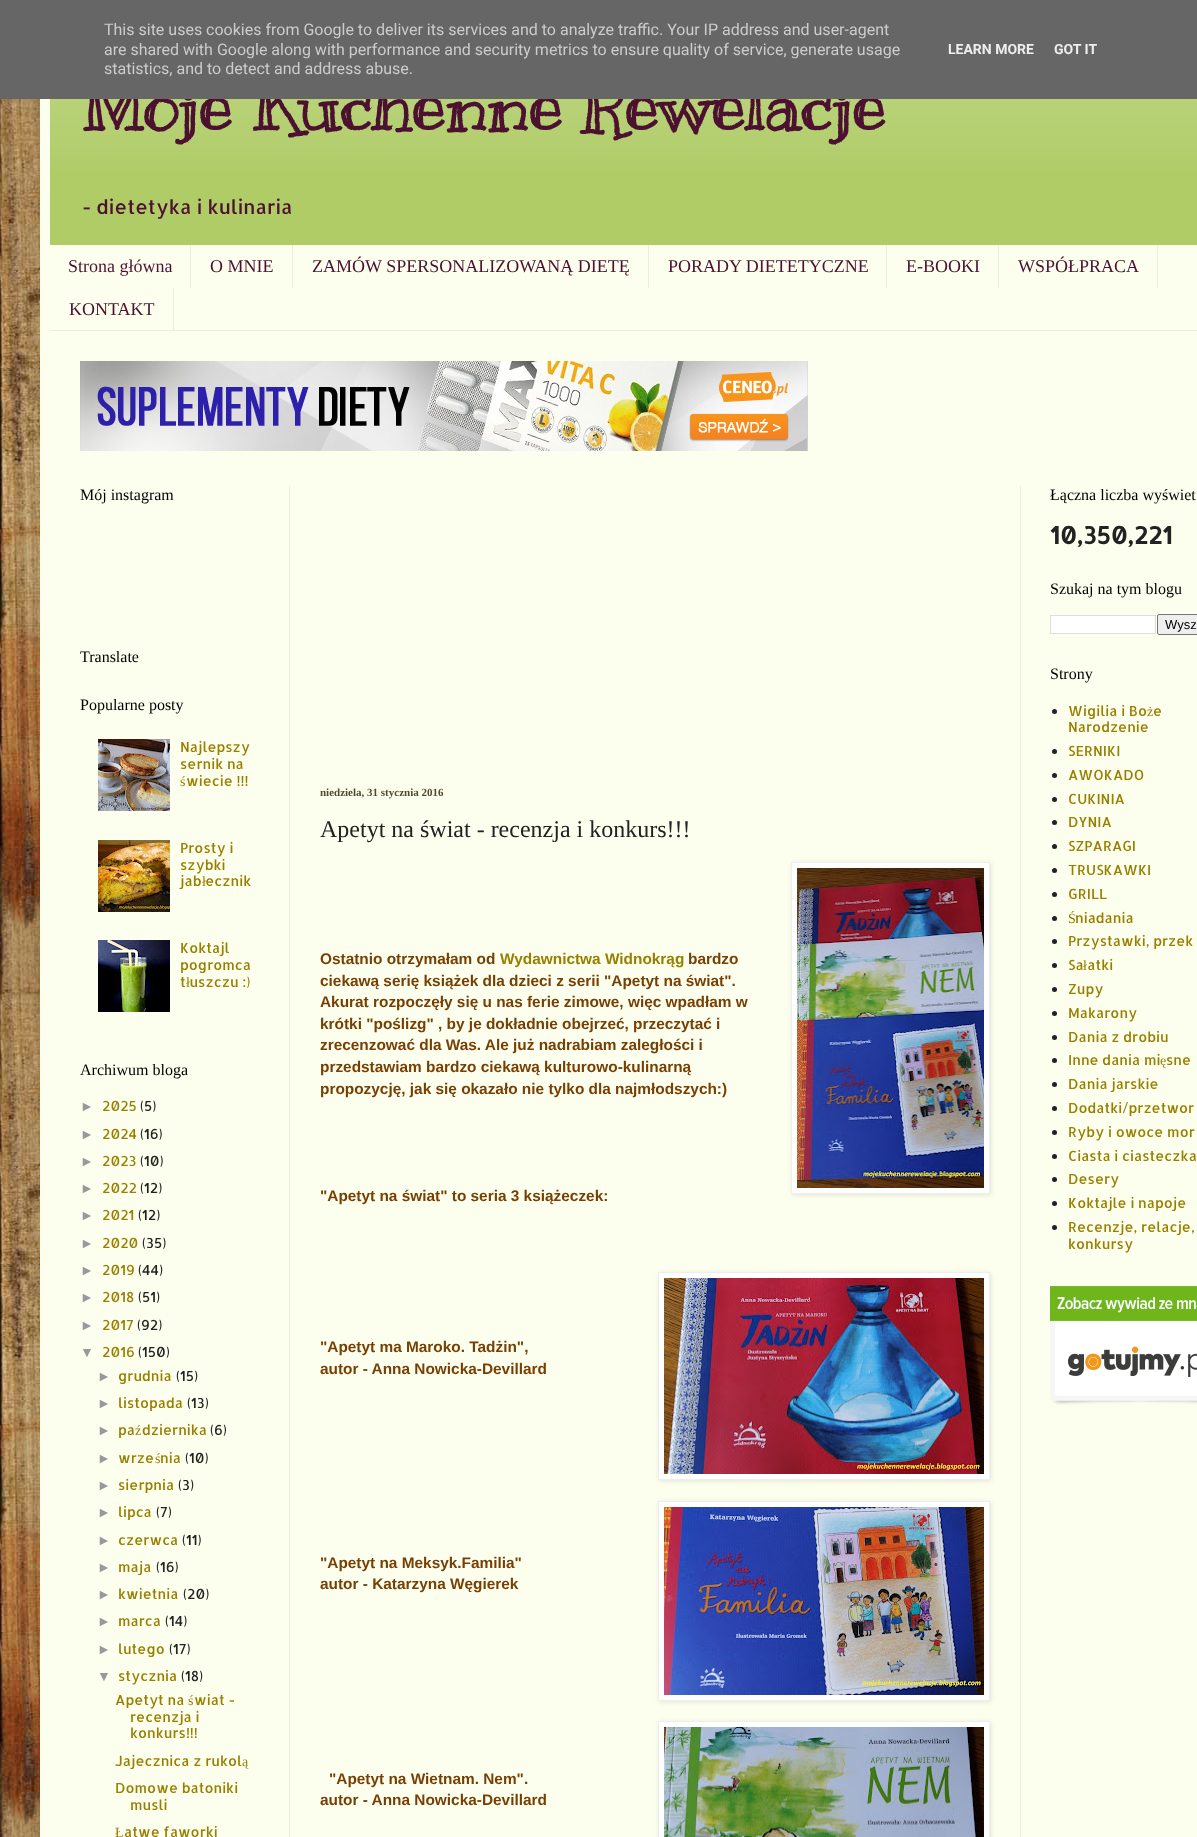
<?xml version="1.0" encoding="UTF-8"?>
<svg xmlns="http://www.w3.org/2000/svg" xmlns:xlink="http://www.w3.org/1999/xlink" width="1197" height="1837">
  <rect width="100%" height="100%" fill="#ffffff" />
  <image x="0" y="99" width="40" height="1738" xlink:href="image1.png" />
  <rect x="40" y="30" width="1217" height="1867" fill="#000000" fill-opacity="0.15" filter="blur(20px)" />
  <rect x="40" y="99" width="1157" height="1738" fill="#fcffee" />
  <rect x="50" y="99" width="1147" height="146" fill="#afcc66" />
  <image x="50" y="99" width="1147" height="71" xlink:href="image2.png" />
  <rect x="50" y="330" width="1147" height="1" fill="#eeeddd" />
  <rect x="190" y="245" width="1" height="43" fill="#eeeddd" />
  <rect x="292" y="245" width="1" height="43" fill="#eeeddd" />
  <rect x="648" y="245" width="1" height="43" fill="#eeeddd" />
  <rect x="886" y="245" width="1" height="43" fill="#eeeddd" />
  <rect x="998" y="245" width="1" height="43" fill="#eeeddd" />
  <rect x="1157" y="245" width="1" height="43" fill="#eeeddd" />
  <rect x="173" y="288" width="1" height="42" fill="#eeeddd" />
  <image x="80" y="361" width="728" height="90" xlink:href="image3.png" />
  <rect x="289" y="486" width="1" height="1351" fill="#eeeddd" />
  <rect x="1020" y="486" width="1" height="1351" fill="#eeeddd" />
  <image x="98" y="739" width="72" height="72" xlink:href="image4.png" />
  <image x="98" y="840" width="72" height="72" xlink:href="image5.png" />
  <image x="98" y="940" width="72" height="72" xlink:href="image6.png" />
  <rect x="792" y="863" width="199" height="332" fill="#000000" fill-opacity="0.1" filter="blur(2.5px)" />
  <rect x="791.5" y="862.5" width="198" height="331" fill="#ffffff" stroke="#eeeeee" />
  <image x="797" y="868" width="187" height="320" xlink:href="image7.png" />
  <rect x="659" y="1273" width="332" height="208" fill="#000000" fill-opacity="0.1" filter="blur(2.5px)" />
  <rect x="658.5" y="1272.5" width="331" height="207" fill="#ffffff" stroke="#eeeeee" />
  <image x="664" y="1278" width="320" height="196" xlink:href="image8.png" />
  <rect x="659" y="1502" width="332" height="200" fill="#000000" fill-opacity="0.1" filter="blur(2.5px)" />
  <rect x="658.5" y="1501.5" width="331" height="199" fill="#ffffff" stroke="#eeeeee" />
  <image x="664" y="1507" width="320" height="188" xlink:href="image9.png" />
  <rect x="659" y="1722" width="332" height="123" fill="#000000" fill-opacity="0.1" filter="blur(2.5px)" />
  <rect x="658.5" y="1721.5" width="331" height="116" fill="#ffffff" stroke="#eeeeee" />
  <image x="664" y="1727" width="320" height="110" xlink:href="image10.png" />
  <rect x="1050.5" y="615.5" width="105" height="18" fill="#ffffff" stroke="#dddddd" />
  <rect x="1157.5" y="614.5" width="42" height="20" rx="1.5" fill="#efefef" stroke="#767676" />
  <circle cx="1054.5" cy="711.5" r="2.5" fill="#222222" />
  <circle cx="1054.5" cy="751.5" r="2.5" fill="#222222" />
  <circle cx="1054.5" cy="775.5" r="2.5" fill="#222222" />
  <circle cx="1054.5" cy="799.5" r="2.5" fill="#222222" />
  <circle cx="1054.5" cy="822.5" r="2.5" fill="#222222" />
  <circle cx="1054.5" cy="846.5" r="2.5" fill="#222222" />
  <circle cx="1054.5" cy="870.5" r="2.5" fill="#222222" />
  <circle cx="1054.5" cy="894.5" r="2.5" fill="#222222" />
  <circle cx="1054.5" cy="918.5" r="2.5" fill="#222222" />
  <circle cx="1054.5" cy="941.5" r="2.5" fill="#222222" />
  <circle cx="1054.5" cy="965.5" r="2.5" fill="#222222" />
  <circle cx="1054.5" cy="989.5" r="2.5" fill="#222222" />
  <circle cx="1054.5" cy="1013.5" r="2.5" fill="#222222" />
  <circle cx="1054.5" cy="1037.5" r="2.5" fill="#222222" />
  <circle cx="1054.5" cy="1060.5" r="2.5" fill="#222222" />
  <circle cx="1054.5" cy="1084.5" r="2.5" fill="#222222" />
  <circle cx="1054.5" cy="1108.5" r="2.5" fill="#222222" />
  <circle cx="1054.5" cy="1132.5" r="2.5" fill="#222222" />
  <circle cx="1054.5" cy="1156.5" r="2.5" fill="#222222" />
  <circle cx="1054.5" cy="1179.5" r="2.5" fill="#222222" />
  <circle cx="1054.5" cy="1203.5" r="2.5" fill="#222222" />
  <circle cx="1054.5" cy="1227.5" r="2.5" fill="#222222" />
  <image x="1050" y="1286" width="147" height="119" xlink:href="image11.png" />
  <text x="80" y="130" style="font-family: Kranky; font-size: 70px; font-weight: bold; fill: #4c1130">Moje Kuchenne Rewelacje</text>
  <rect width="1197" height="99" fill="#666666" />
  <text x="1054" y="54" style="font-family: Roboto; font-size: 14px; font-weight: bold; fill: #eeeeee">GOT IT</text>
  <text x="948" y="54" style="font-family: Roboto; font-size: 14px; font-weight: bold; fill: #eeeeee">LEARN MORE</text>
  <text x="104" y="74" style="font-family: Roboto; font-size: 16px; fill: #cccccc">statistics, and to detect and address abuse.</text>
  <text x="104" y="55" style="font-family: Roboto; font-size: 16px; fill: #cccccc">are shared with Google along with performance and security metrics to ensure quality of service, generate usage</text>
  <text x="104" y="35" style="font-family: Roboto; font-size: 16px; fill: #cccccc">This site uses cookies from Google to deliver its services and to analyze traffic. Your IP address and user-agent</text>
  <text x="82" y="214" style="font-family: Allerta; font-size: 19.6px; fill: #4c1130">- dietetyka i kulinaria</text>
  <text x="68" y="272" style="font-family: Liberation Serif; font-size: 18px; fill: #4c1130">Strona główna</text>
  <text x="210" y="272" style="font-family: Liberation Serif; font-size: 18px; fill: #4c1130">O MNIE</text>
  <text x="312" y="272" style="font-family: Liberation Serif; font-size: 18px; fill: #4c1130">ZAMÓW SPERSONALIZOWANĄ DIETĘ</text>
  <text x="668" y="272" style="font-family: Liberation Serif; font-size: 18px; fill: #4c1130">PORADY DIETETYCZNE</text>
  <text x="906" y="272" style="font-family: Liberation Serif; font-size: 18px; fill: #4c1130">E-BOOKI</text>
  <text x="1018" y="272" style="font-family: Liberation Serif; font-size: 18px; fill: #4c1130">WSPÓŁPRACA</text>
  <text x="69" y="315" style="font-family: Liberation Serif; font-size: 18px; fill: #4c1130">KONTAKT</text>
  <text x="80" y="500" style="font-family: Liberation Serif; font-size: 16px; fill: #000000">Mój instagram</text>
  <text x="80" y="662" style="font-family: Liberation Serif; font-size: 16px; fill: #000000">Translate</text>
  <text x="80" y="710" style="font-family: Liberation Serif; font-size: 16px; fill: #000000">Popularne posty</text>
  <text x="180" y="752" style="font-family: Allerta; font-size: 14px; fill: #997f00">Najlepszy</text>
  <text x="180" y="769" style="font-family: Allerta; font-size: 14px; fill: #997f00">sernik na</text>
  <text x="180" y="786" style="font-family: Liberation Serif; font-size: 14px; fill: #997f00">ś</text>
  <text x="186" y="786" style="font-family: Allerta; font-size: 14px; fill: #997f00">wiecie !!!</text>
  <text x="180" y="853" style="font-family: Allerta; font-size: 14px; fill: #997f00">Prosty i</text>
  <text x="180" y="870" style="font-family: Allerta; font-size: 14px; fill: #997f00">szybki</text>
  <text x="180" y="886" style="font-family: Allerta; font-size: 14px; fill: #997f00">jab ecznik</text>
  <text x="202" y="886" style="font-family: Liberation Serif; font-size: 14px; fill: #997f00">ł</text>
  <text x="180" y="953" style="font-family: Allerta; font-size: 14px; fill: #997f00">Koktajl</text>
  <text x="180" y="970" style="font-family: Allerta; font-size: 14px; fill: #997f00">pogromca</text>
  <text x="180" y="987" style="font-family: Allerta; font-size: 14px; fill: #997f00">t uszczu :)</text>
  <text x="186" y="987" style="font-family: Liberation Serif; font-size: 14px; fill: #997f00">ł</text>
  <text x="80" y="1075" style="font-family: Liberation Serif; font-size: 16px; fill: #000000">Archiwum bloga</text>
  <text x="80" y="1111" style="font-family: Liberation Sans; font-size: 14px; fill: #999999">►</text>
  <text x="102" y="1111" style="font-family: Allerta; font-size: 14px; fill: #997f00">2025</text>
  <text x="140" y="1111" style="font-family: Allerta; font-size: 14px; fill: #222222">(5)</text>
  <text x="80" y="1139" style="font-family: Liberation Sans; font-size: 14px; fill: #999999">►</text>
  <text x="102" y="1139" style="font-family: Allerta; font-size: 14px; fill: #997f00">2024</text>
  <text x="140" y="1139" style="font-family: Allerta; font-size: 14px; fill: #222222">(16)</text>
  <text x="80" y="1166" style="font-family: Liberation Sans; font-size: 14px; fill: #999999">►</text>
  <text x="102" y="1166" style="font-family: Allerta; font-size: 14px; fill: #997f00">2023</text>
  <text x="140" y="1166" style="font-family: Allerta; font-size: 14px; fill: #222222">(10)</text>
  <text x="80" y="1193" style="font-family: Liberation Sans; font-size: 14px; fill: #999999">►</text>
  <text x="102" y="1193" style="font-family: Allerta; font-size: 14px; fill: #997f00">2022</text>
  <text x="140" y="1193" style="font-family: Allerta; font-size: 14px; fill: #222222">(12)</text>
  <text x="80" y="1220" style="font-family: Liberation Sans; font-size: 14px; fill: #999999">►</text>
  <text x="102" y="1220" style="font-family: Allerta; font-size: 14px; fill: #997f00">2021</text>
  <text x="138" y="1220" style="font-family: Allerta; font-size: 14px; fill: #222222">(12)</text>
  <text x="80" y="1248" style="font-family: Liberation Sans; font-size: 14px; fill: #999999">►</text>
  <text x="102" y="1248" style="font-family: Allerta; font-size: 14px; fill: #997f00">2020</text>
  <text x="142" y="1248" style="font-family: Allerta; font-size: 14px; fill: #222222">(35)</text>
  <text x="80" y="1275" style="font-family: Liberation Sans; font-size: 14px; fill: #999999">►</text>
  <text x="102" y="1275" style="font-family: Allerta; font-size: 14px; fill: #997f00">2019</text>
  <text x="138" y="1275" style="font-family: Allerta; font-size: 14px; fill: #222222">(44)</text>
  <text x="80" y="1302" style="font-family: Liberation Sans; font-size: 14px; fill: #999999">►</text>
  <text x="102" y="1302" style="font-family: Allerta; font-size: 14px; fill: #997f00">2018</text>
  <text x="138" y="1302" style="font-family: Allerta; font-size: 14px; fill: #222222">(51)</text>
  <text x="80" y="1330" style="font-family: Liberation Sans; font-size: 14px; fill: #999999">►</text>
  <text x="102" y="1330" style="font-family: Allerta; font-size: 14px; fill: #997f00">2017</text>
  <text x="137" y="1330" style="font-family: Allerta; font-size: 14px; fill: #222222">(92)</text>
  <text x="80" y="1357" style="font-family: Liberation Sans; font-size: 14px; fill: #999999">▼</text>
  <text x="102" y="1357" style="font-family: Allerta; font-size: 14px; fill: #997f00">2016</text>
  <text x="138" y="1357" style="font-family: Allerta; font-size: 14px; fill: #222222">(150)</text>
  <text x="97" y="1381" style="font-family: Liberation Sans; font-size: 14px; fill: #999999">►</text>
  <text x="118" y="1381" style="font-family: Allerta; font-size: 14px; fill: #997f00">grudnia</text>
  <text x="176" y="1381" style="font-family: Allerta; font-size: 14px; fill: #222222">(15)</text>
  <text x="97" y="1408" style="font-family: Liberation Sans; font-size: 14px; fill: #999999">►</text>
  <text x="118" y="1408" style="font-family: Allerta; font-size: 14px; fill: #997f00">listopada</text>
  <text x="187" y="1408" style="font-family: Allerta; font-size: 14px; fill: #222222">(13)</text>
  <text x="97" y="1435" style="font-family: Liberation Sans; font-size: 14px; fill: #999999">►</text>
  <text x="118" y="1435" style="font-family: Allerta; font-size: 14px; fill: #997f00">pa</text>
  <text x="135" y="1435" style="font-family: Liberation Serif; font-size: 14px; fill: #997f00">ź</text>
  <text x="142" y="1435" style="font-family: Allerta; font-size: 14px; fill: #997f00">dziernika</text>
  <text x="210" y="1435" style="font-family: Allerta; font-size: 14px; fill: #222222">(6)</text>
  <text x="97" y="1463" style="font-family: Liberation Sans; font-size: 14px; fill: #999999">►</text>
  <text x="118" y="1463" style="font-family: Allerta; font-size: 14px; fill: #997f00">wrze</text>
  <text x="155" y="1463" style="font-family: Liberation Serif; font-size: 14px; fill: #997f00">ś</text>
  <text x="160" y="1463" style="font-family: Allerta; font-size: 14px; fill: #997f00">nia</text>
  <text x="185" y="1463" style="font-family: Allerta; font-size: 14px; fill: #222222">(10)</text>
  <text x="97" y="1490" style="font-family: Liberation Sans; font-size: 14px; fill: #999999">►</text>
  <text x="118" y="1490" style="font-family: Allerta; font-size: 14px; fill: #997f00">sierpnia</text>
  <text x="178" y="1490" style="font-family: Allerta; font-size: 14px; fill: #222222">(3)</text>
  <text x="97" y="1517" style="font-family: Liberation Sans; font-size: 14px; fill: #999999">►</text>
  <text x="118" y="1517" style="font-family: Allerta; font-size: 14px; fill: #997f00">lipca</text>
  <text x="156" y="1517" style="font-family: Allerta; font-size: 14px; fill: #222222">(7)</text>
  <text x="97" y="1545" style="font-family: Liberation Sans; font-size: 14px; fill: #999999">►</text>
  <text x="118" y="1545" style="font-family: Allerta; font-size: 14px; fill: #997f00">czerwca</text>
  <text x="182" y="1545" style="font-family: Allerta; font-size: 14px; fill: #222222">(11)</text>
  <text x="97" y="1572" style="font-family: Liberation Sans; font-size: 14px; fill: #999999">►</text>
  <text x="118" y="1572" style="font-family: Allerta; font-size: 14px; fill: #997f00">maja</text>
  <text x="156" y="1572" style="font-family: Allerta; font-size: 14px; fill: #222222">(16)</text>
  <text x="97" y="1599" style="font-family: Liberation Sans; font-size: 14px; fill: #999999">►</text>
  <text x="118" y="1599" style="font-family: Allerta; font-size: 14px; fill: #997f00">kwietnia</text>
  <text x="183" y="1599" style="font-family: Allerta; font-size: 14px; fill: #222222">(20)</text>
  <text x="97" y="1626" style="font-family: Liberation Sans; font-size: 14px; fill: #999999">►</text>
  <text x="118" y="1626" style="font-family: Allerta; font-size: 14px; fill: #997f00">marca</text>
  <text x="165" y="1626" style="font-family: Allerta; font-size: 14px; fill: #222222">(14)</text>
  <text x="97" y="1654" style="font-family: Liberation Sans; font-size: 14px; fill: #999999">►</text>
  <text x="118" y="1654" style="font-family: Allerta; font-size: 14px; fill: #997f00">lutego</text>
  <text x="169" y="1654" style="font-family: Allerta; font-size: 14px; fill: #222222">(17)</text>
  <text x="97" y="1681" style="font-family: Liberation Sans; font-size: 14px; fill: #999999">▼</text>
  <text x="118" y="1681" style="font-family: Allerta; font-size: 14px; fill: #997f00">stycznia</text>
  <text x="181" y="1681" style="font-family: Allerta; font-size: 14px; fill: #222222">(18)</text>
  <text x="115" y="1705" style="font-family: Allerta; font-size: 14px; fill: #997f00">Apetyt na</text>
  <text x="188" y="1705" style="font-family: Liberation Serif; font-size: 14px; fill: #997f00">ś</text>
  <text x="194" y="1705" style="font-family: Allerta; font-size: 14px; fill: #997f00">wiat -</text>
  <text x="130" y="1722" style="font-family: Allerta; font-size: 14px; fill: #997f00">recenzja i</text>
  <text x="130" y="1738" style="font-family: Allerta; font-size: 14px; fill: #997f00">konkurs!!!</text>
  <text x="115" y="1766" style="font-family: Allerta; font-size: 14px; fill: #997f00">Jajecznica z rukol</text>
  <text x="242" y="1766" style="font-family: Liberation Serif; font-size: 14px; fill: #997f00">ą</text>
  <text x="115" y="1793" style="font-family: Allerta; font-size: 14px; fill: #997f00">Domowe batoniki</text>
  <text x="130" y="1810" style="font-family: Allerta; font-size: 14px; fill: #997f00">musli</text>
  <text x="115" y="1837" style="font-family: Liberation Serif; font-size: 14px; fill: #997f00">Ł</text>
  <text x="124" y="1837" style="font-family: Allerta; font-size: 14px; fill: #997f00">atwe faworki</text>
  <text x="320" y="796" style="font-family: Liberation Serif; font-size: 11px; font-weight: bold; fill: #514831">niedziela, 31 stycznia 2016</text>
  <text x="320" y="837" style="font-family: Liberation Serif; font-size: 24px; fill: #222222">Apetyt na świat - recenzja i konkurs!!!</text>
  <text x="320" y="964" style="font-family: Liberation Sans; font-size: 15.4px; font-weight: bold; fill: #783f04">Ostatnio otrzymałam od</text>
  <text x="500" y="964" style="font-family: Liberation Sans; font-size: 15.4px; font-weight: bold; fill: #997f00">Wydawnictwa Widnokrąg</text>
  <text x="688" y="964" style="font-family: Liberation Sans; font-size: 15.4px; font-weight: bold; fill: #783f04">bardzo</text>
  <text x="320" y="986" style="font-family: Liberation Sans; font-size: 15.4px; font-weight: bold; fill: #783f04">ciekawą serię książek dla dzieci z serii "Apetyt na świat".</text>
  <text x="320" y="1007" style="font-family: Liberation Sans; font-size: 15.4px; font-weight: bold; fill: #783f04">Akurat rozpoczęły się u nas ferie zimowe, więc wpadłam w</text>
  <text x="320" y="1029" style="font-family: Liberation Sans; font-size: 15.4px; font-weight: bold; fill: #783f04">krótki "poślizg" , by je dokładnie obejrzeć, przeczytać i</text>
  <text x="320" y="1050" style="font-family: Liberation Sans; font-size: 15.4px; font-weight: bold; fill: #783f04">zrecenzować dla Was. Ale już nadrabiam zaległości i</text>
  <text x="320" y="1072" style="font-family: Liberation Sans; font-size: 15.4px; font-weight: bold; fill: #783f04">przedstawiam bardzo ciekawą kulturowo-kulinarną</text>
  <text x="320" y="1094" style="font-family: Liberation Sans; font-size: 15.4px; font-weight: bold; fill: #783f04">propozycję, jak się okazało nie tylko dla najmłodszych:)</text>
  <text x="320" y="1201" style="font-family: Liberation Sans; font-size: 15.4px; font-weight: bold; fill: #783f04">"Apetyt na świat" to seria 3 książeczek:</text>
  <text x="320" y="1352" style="font-family: Liberation Sans; font-size: 15.4px; font-weight: bold; fill: #783f04">"Apetyt ma Maroko. Tadżin",</text>
  <text x="320" y="1374" style="font-family: Liberation Sans; font-size: 15.4px; font-weight: bold; fill: #783f04">autor - Anna Nowicka-Devillard</text>
  <text x="320" y="1568" style="font-family: Liberation Sans; font-size: 15.4px; font-weight: bold; fill: #783f04">"Apetyt na Meksyk.Familia"</text>
  <text x="320" y="1589" style="font-family: Liberation Sans; font-size: 15.4px; font-weight: bold; fill: #783f04">autor - Katarzyna Węgierek</text>
  <text x="329" y="1784" style="font-family: Liberation Sans; font-size: 15.4px; font-weight: bold; fill: #783f04">"Apetyt na Wietnam. Nem".</text>
  <text x="320" y="1805" style="font-family: Liberation Sans; font-size: 15.4px; font-weight: bold; fill: #783f04">autor - Anna Nowicka-Devillard</text>
  <text x="1050" y="500" style="font-family: Liberation Serif; font-size: 16px; fill: #000000">Łączna liczba wyświet</text>
  <text x="1050" y="544" style="font-family: Allerta; font-size: 24px; font-weight: bold; fill: #222222">10,350,221</text>
  <text x="1050" y="594" style="font-family: Liberation Serif; font-size: 16px; fill: #000000">Szukaj na tym blogu</text>
  <text x="1165" y="629" style="font-family: Liberation Sans; font-size: 13px; fill: #000000">Wysz</text>
  <text x="1050" y="679" style="font-family: Liberation Serif; font-size: 16px; fill: #000000">Strony</text>
  <text x="1068" y="716" style="font-family: Allerta; font-size: 14px; fill: #997f00">Wigilia i Bo</text>
  <text x="1147" y="716" style="font-family: Liberation Serif; font-size: 14px; fill: #997f00">ż</text>
  <text x="1153" y="716" style="font-family: Allerta; font-size: 14px; fill: #997f00">e</text>
  <text x="1068" y="732" style="font-family: Allerta; font-size: 14px; fill: #997f00">Narodzenie</text>
  <text x="1068" y="756" style="font-family: Allerta; font-size: 14px; fill: #997f00">SERNIKI</text>
  <text x="1068" y="780" style="font-family: Allerta; font-size: 14px; fill: #997f00">AWOKADO</text>
  <text x="1068" y="804" style="font-family: Allerta; font-size: 14px; fill: #997f00">CUKINIA</text>
  <text x="1068" y="827" style="font-family: Allerta; font-size: 14px; fill: #997f00">DYNIA</text>
  <text x="1068" y="851" style="font-family: Allerta; font-size: 14px; fill: #997f00">SZPARAGI</text>
  <text x="1068" y="875" style="font-family: Allerta; font-size: 14px; fill: #997f00">TRUSKAWKI</text>
  <text x="1068" y="899" style="font-family: Allerta; font-size: 14px; fill: #997f00">GRILL</text>
  <text x="1068" y="923" style="font-family: Liberation Serif; font-size: 14px; fill: #997f00">Ś</text>
  <text x="1075" y="923" style="font-family: Allerta; font-size: 14px; fill: #997f00">niadania</text>
  <text x="1068" y="946" style="font-family: Allerta; font-size: 14px; fill: #997f00">Przystawki, przek</text>
  <text x="1068" y="970" style="font-family: Allerta; font-size: 14px; fill: #997f00">Sa atki</text>
  <text x="1083" y="970" style="font-family: Liberation Serif; font-size: 14px; fill: #997f00">ł</text>
  <text x="1068" y="994" style="font-family: Allerta; font-size: 14px; fill: #997f00">Zupy</text>
  <text x="1068" y="1018" style="font-family: Allerta; font-size: 14px; fill: #997f00">Makarony</text>
  <text x="1068" y="1042" style="font-family: Allerta; font-size: 14px; fill: #997f00">Dania z drobiu</text>
  <text x="1068" y="1065" style="font-family: Allerta; font-size: 14px; fill: #997f00">Inne dania mi</text>
  <text x="1160" y="1065" style="font-family: Liberation Serif; font-size: 14px; fill: #997f00">ę</text>
  <text x="1166" y="1065" style="font-family: Allerta; font-size: 14px; fill: #997f00">sne</text>
  <text x="1068" y="1089" style="font-family: Allerta; font-size: 14px; fill: #997f00">Dania jarskie</text>
  <text x="1068" y="1113" style="font-family: Allerta; font-size: 14px; fill: #997f00">Dodatki/przetwor</text>
  <text x="1068" y="1137" style="font-family: Allerta; font-size: 14px; fill: #997f00">Ryby i owoce mor</text>
  <text x="1068" y="1161" style="font-family: Allerta; font-size: 14px; fill: #997f00">Ciasta i ciasteczka</text>
  <text x="1068" y="1184" style="font-family: Allerta; font-size: 14px; fill: #997f00">Desery</text>
  <text x="1068" y="1208" style="font-family: Allerta; font-size: 14px; fill: #997f00">Koktajle i napoje</text>
  <text x="1068" y="1232" style="font-family: Allerta; font-size: 14px; fill: #997f00">Recenzje, relacje,</text>
  <text x="1068" y="1249" style="font-family: Allerta; font-size: 14px; fill: #997f00">konkursy</text>
</svg>
